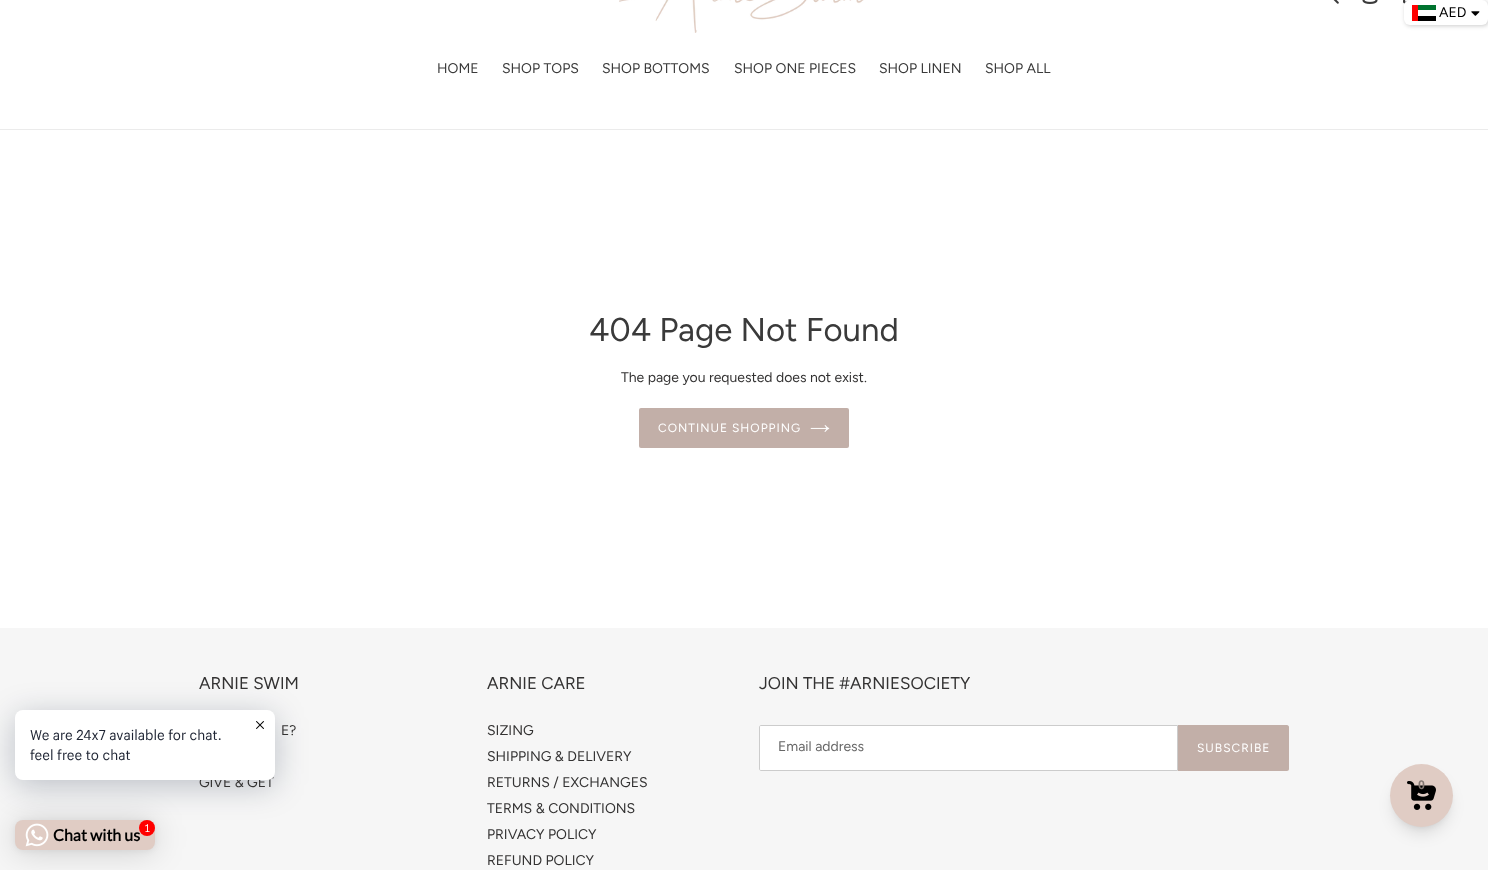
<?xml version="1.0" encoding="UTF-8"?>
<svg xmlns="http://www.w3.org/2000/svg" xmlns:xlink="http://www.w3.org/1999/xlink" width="1488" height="870">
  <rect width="100%" height="100%" fill="#ffffff" />
  <image x="1403" y="0" width="4" height="4" xlink:href="image6.png" />
  <rect x="1405" y="1" width="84" height="25" rx="6" fill="#000000" fill-opacity="0.2" filter="blur(2px)" />
  <rect x="1404" width="84" height="25" rx="6" fill="#ffffff" />
  <image x="1412" y="5" width="24" height="16" xlink:href="image1.png" />
  <image x="1471" y="11" width="9" height="5" xlink:href="image2.png" />
  <image x="619" y="0" width="245" height="33" xlink:href="image3.png" />
  <image x="1333" y="0" width="6" height="4" xlink:href="image4.png" />
  <image x="1362" y="0" width="16" height="4" xlink:href="image5.png" />
  <rect y="129" width="1488" height="1" fill="#ebebeb" />
  <rect y="628" width="1488" height="242" fill="#f6f6f6" />
  <rect x="15" y="716" width="260" height="70" rx="8" fill="#00122e" fill-opacity="0.24" filter="blur(16px)" />
  <rect x="15" y="821" width="140" height="30" rx="8" fill="#000000" fill-opacity="0.06" filter="blur(3px)" />
  <rect x="639" y="408" width="210" height="40" rx="2" fill="#c2afa8" />
  <image x="810" y="425" width="20" height="7" xlink:href="image9.png" />
  <path d="M 761 725.5 h 416.5 v 45 h -416.5 c -1 0 -1.5 -0.5 -1.5 -1.5 v -42 c 0 -1 0.5 -1.5 1.5 -1.5 z" fill="#ffffff" stroke="#cccccc" />
  <path d="M 1178 725 h 109 c 1 0 2 1 2 2 v 42 c 0 1 -1 2 -2 2 h -109 z" fill="#c2afa8" />
  <rect x="1394" y="772" width="55" height="55" rx="27.5" fill="#000000" fill-opacity="0.1" filter="blur(3px)" />
  <rect x="1393" y="777" width="57" height="57" rx="28.5" fill="#000000" fill-opacity="0.1" filter="blur(7.5px)" />
  <circle cx="1421.5" cy="795.5" r="31.5" fill="#e0ccc4" />
  <image x="1407" y="781" width="29" height="29" xlink:href="image10.png" />
  <text x="1439" y="17" style="font-family: Figtree; font-size: 14px; fill: #000000">AED</text>
  <text x="437" y="73" style="font-family: Figtree; font-size: 14px; fill: #3a3a3a">HOME</text>
  <text x="502" y="73" style="font-family: Figtree; font-size: 14px; fill: #3a3a3a">SHOP TOPS</text>
  <text x="602" y="73" style="font-family: Figtree; font-size: 14px; fill: #3a3a3a">SHOP BOTTOMS</text>
  <text x="734" y="73" style="font-family: Figtree; font-size: 14px; fill: #3a3a3a">SHOP ONE PIECES</text>
  <text x="879" y="73" style="font-family: Figtree; font-size: 14px; fill: #3a3a3a">SHOP LINEN</text>
  <text x="985" y="73" style="font-family: Figtree; font-size: 14px; fill: #3a3a3a">SHOP ALL</text>
  <text x="589" y="341" style="font-family: Figtree; font-size: 33px; fill: #3a3a3a">404 Page Not Found</text>
  <text x="621" y="382" style="font-family: Figtree; font-size: 14px; fill: #333232">The page you requested does not exist.</text>
  <text x="658" y="432" style="font-family: Figtree; font-size: 12px; letter-spacing: 1px; fill: #ffffff">CONTINUE SHOPPING</text>
  <text x="199" y="689" style="font-family: Figtree; font-size: 17px; fill: #333232">ARNIE SWIM</text>
  <text x="281" y="735" style="font-family: Figtree; font-size: 14px; fill: #333232">E?</text>
  <text x="199" y="787" style="font-family: Figtree; font-size: 14px; fill: #333232">GIVE &amp; GET</text>
  <rect x="15" y="710" width="260" height="70" rx="8" fill="#ffffff" />
  <rect x="15" y="822" width="140" height="30" rx="8" fill="#000000" fill-opacity="0.16" filter="blur(16px)" />
  <rect x="15" y="820" width="140" height="30" rx="8" fill="#e0ccc4" />
  <text x="53" y="841" style="font-family: Lato; font-size: 16px; font-weight: bold; fill: #000000">Chat with us</text>
  <circle cx="147" cy="828" r="8" fill="#ff0000" />
  <text x="145" y="832" style="font-family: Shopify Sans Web; font-size: 11px; fill: #ffffff">1</text>
  <image x="25" y="823" width="24" height="24" xlink:href="image8.png" />
  <image x="256" y="721" width="8" height="8" xlink:href="image7.png" />
  <text x="30" y="760" style="font-family: Shopify Sans Web; font-size: 14px; fill: #1e2433">feel free to chat</text>
  <text x="30" y="740" style="font-family: Shopify Sans Web; font-size: 14px; fill: #1e2433">We are 24x7 available for chat.</text>
  <text x="487" y="689" style="font-family: Figtree; font-size: 17px; fill: #333232">ARNIE CARE</text>
  <text x="487" y="735" style="font-family: Figtree; font-size: 14px; fill: #333232">SIZING</text>
  <text x="487" y="761" style="font-family: Figtree; font-size: 14px; fill: #333232">SHIPPING &amp; DELIVERY</text>
  <text x="487" y="787" style="font-family: Figtree; font-size: 14px; fill: #333232">RETURNS / EXCHANGES</text>
  <text x="487" y="813" style="font-family: Figtree; font-size: 14px; fill: #333232">TERMS &amp; CONDITIONS</text>
  <text x="487" y="839" style="font-family: Figtree; font-size: 14px; fill: #333232">PRIVACY POLICY</text>
  <text x="487" y="865" style="font-family: Figtree; font-size: 14px; fill: #333232">REFUND POLICY</text>
  <text x="759" y="689" style="font-family: Figtree; font-size: 17px; fill: #333232">JOIN THE #ARNIESOCIETY</text>
  <text x="778" y="751" style="font-family: Figtree; font-size: 14px; fill: #666666">Email address</text>
  <text x="1197" y="752" style="font-family: Figtree; font-size: 12px; letter-spacing: 1px; fill: #ffffff">SUBSCRIBE</text>
  <text x="1418" y="789" style="font-family: Roboto; font-size: 12px; font-weight: bold; fill: #827772">0</text>
</svg>
